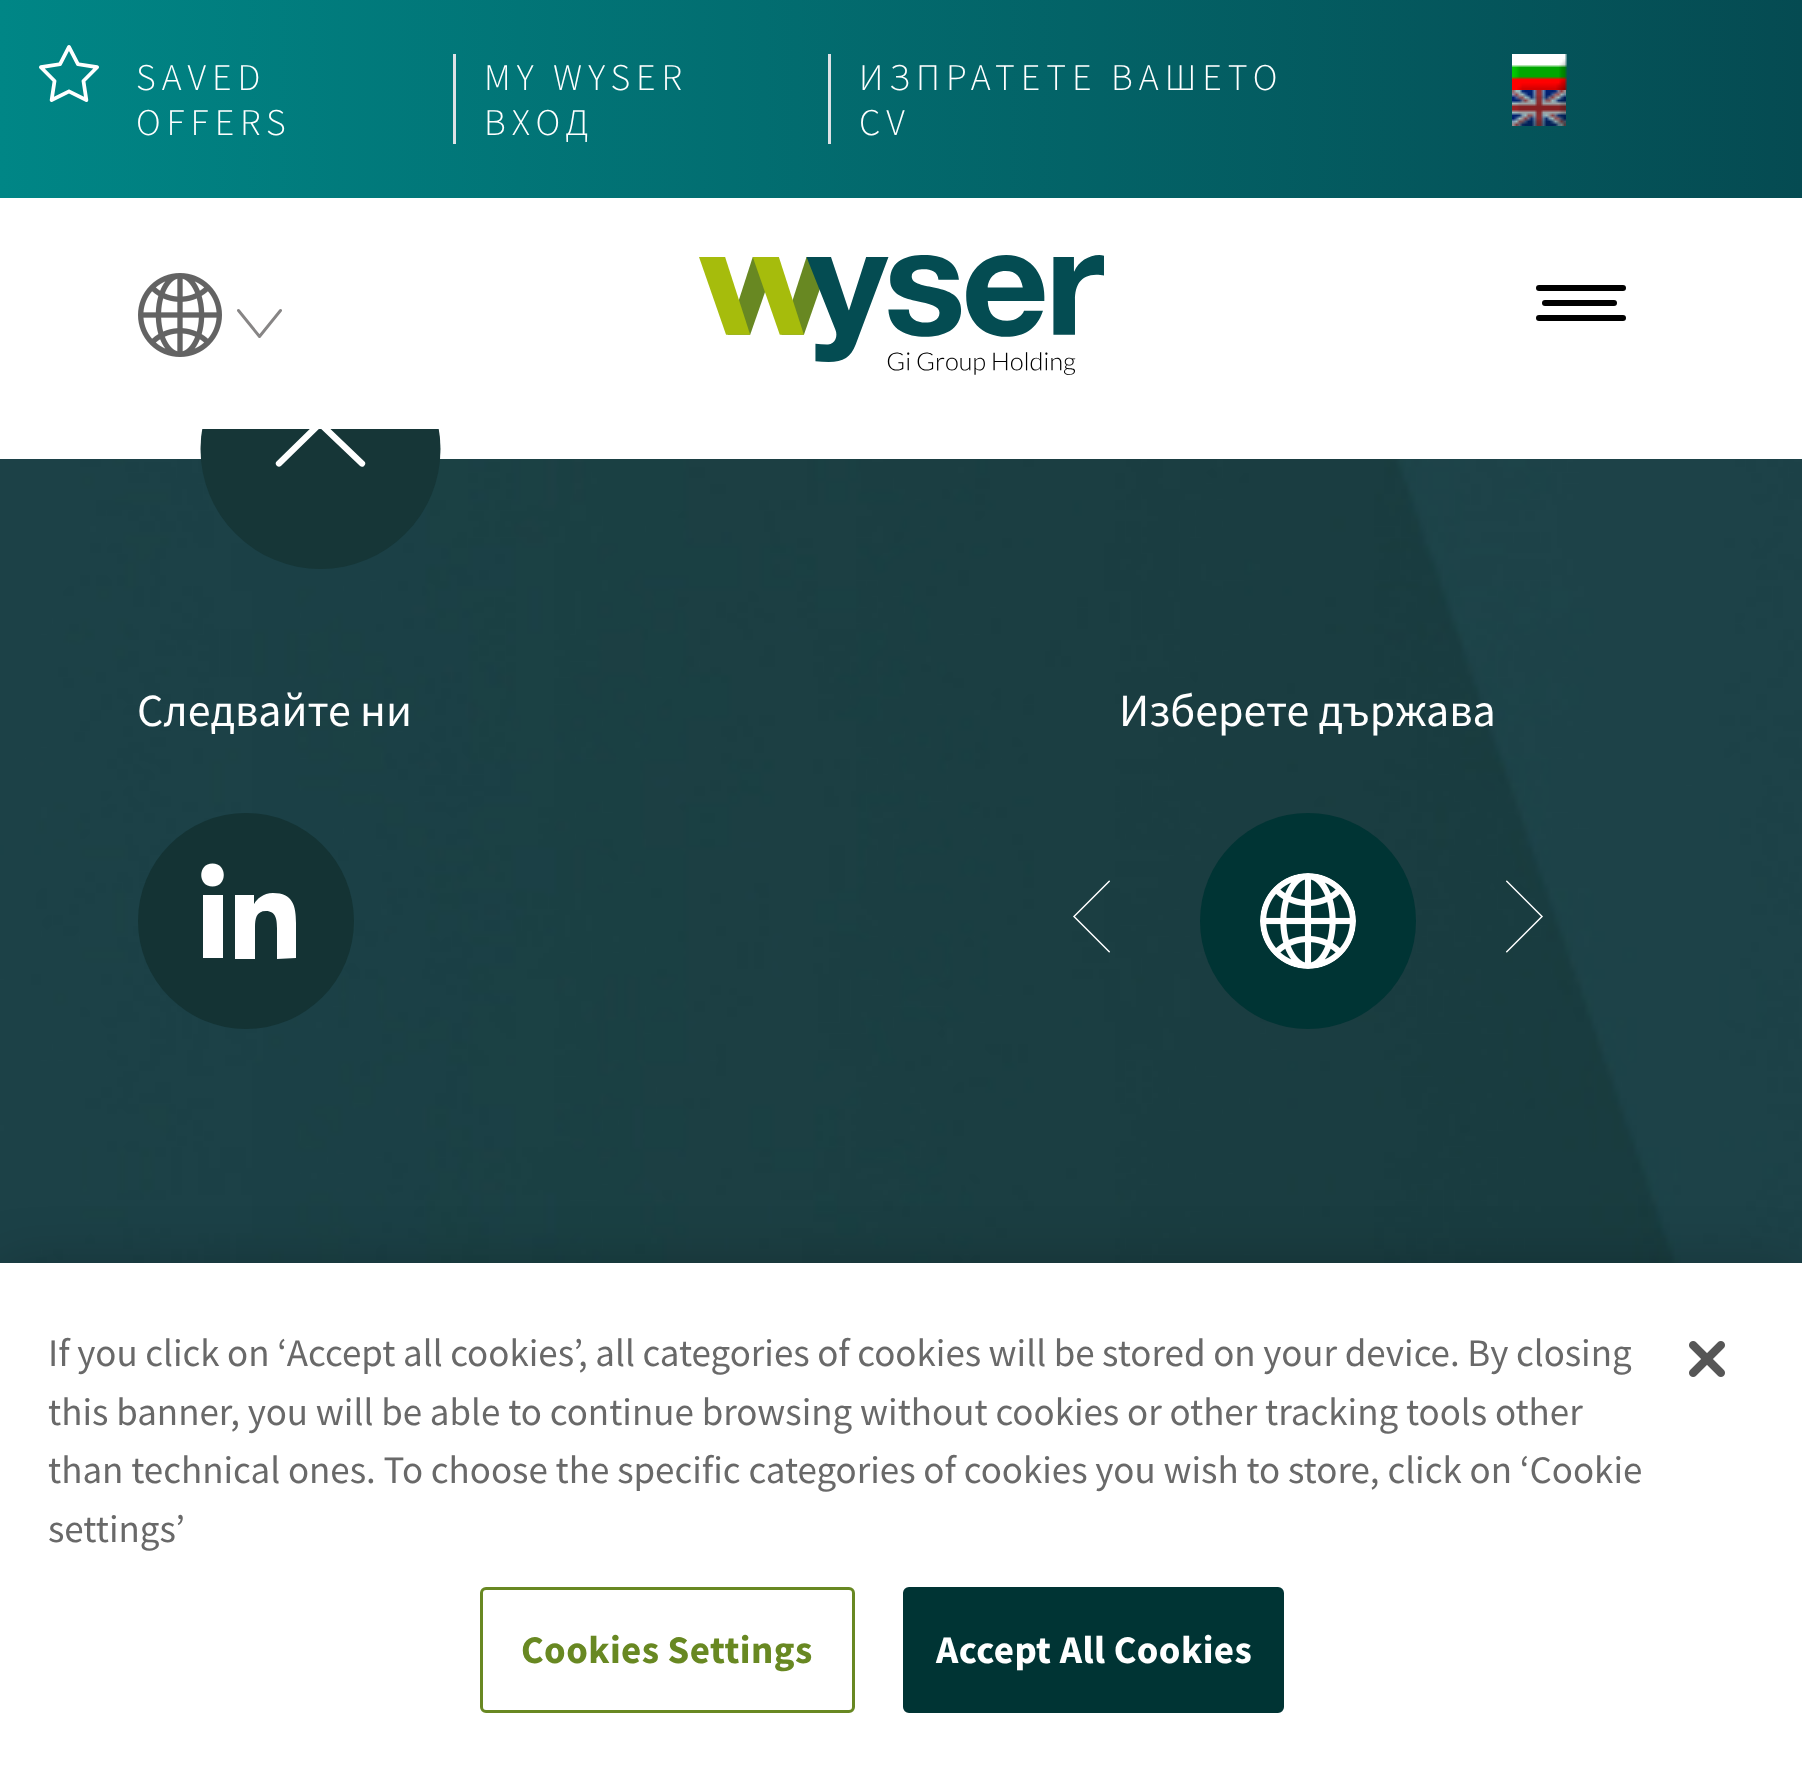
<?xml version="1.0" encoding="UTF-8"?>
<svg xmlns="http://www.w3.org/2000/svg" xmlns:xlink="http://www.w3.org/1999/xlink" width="1802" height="1767">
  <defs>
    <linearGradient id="g1" gradientUnits="userSpaceOnUse" x1="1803" y1="99" x2="0" y2="99"><stop offset="0" stop-color="#054b52" /><stop offset="1" stop-color="#008686" /></linearGradient>
  </defs>
  <rect width="100%" height="100%" fill="#ffffff" />
  <image x="0" y="459" width="1802" height="804" xlink:href="image6.png" />
  <circle cx="320.5" cy="449" r="120" fill="#163637" />
  <path d="M 279 463.5 l 41 -40 l 42 40" fill="none" stroke="#ffffff" stroke-width="6.3" stroke-linecap="round" />
  <rect x="202" y="329" width="237" height="100" fill="#ffffff" />
  <rect width="1802" height="198" fill="url(#g1)" />
  <rect x="453" y="54" width="3" height="90" fill="#dee2e6" />
  <image x="39" y="45" width="60" height="57" xlink:href="image1.png" />
  <rect x="828" y="54" width="3" height="90" fill="#dee2e6" />
  <image x="1512" y="54" width="55" height="36" xlink:href="image2.png" />
  <image x="1512" y="90" width="54" height="36" xlink:href="image3.png" />
  <image x="138" y="273" width="84" height="84" xlink:href="image4.png" />
  <path d="M 238.5 310.5 l 21 26 l 21 -26" fill="none" stroke="#878585" stroke-width="2.9" stroke-linecap="round" stroke-linejoin="round" />
  <image x="699" y="255" width="405" height="120" xlink:href="image5.png" />
  <rect x="1542" y="300" width="75" height="6" rx="3" fill="#000000" />
  <rect x="1536" y="285" width="90" height="6" rx="3" fill="#000000" />
  <rect x="1536" y="315" width="90" height="6" rx="3" fill="#000000" />
  <circle cx="246" cy="921" r="108" fill="#143334" />
  <path d="M 212.5 863.5 c -15 0 -15 23 0 23 c 15 0 15 -23 0 -23 z" fill="#ffffff" />
  <rect x="203" y="895" width="20" height="63" fill="#ffffff" />
  <path d="M 296 958 v -35 c 0 -17 -3 -30 -23 -30 c -10 0 -16 6 -19 11 v -9 h -19 v 64 h 20 v -32 c 0 -8 1 -16 11 -16 c 10 0 11 9 11 17 v 31 z" fill="#ffffff" />
  <circle cx="1308" cy="921" r="108" fill="#003434" />
  <image x="1260" y="873" width="96" height="96" xlink:href="image7.png" />
  <image x="1073" y="880" width="37" height="73" xlink:href="image8.png" />
  <image x="1506" y="880" width="37" height="73" xlink:href="image9.png" />
  <rect y="1263" width="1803" height="504" fill="#000000" fill-opacity="0.2" filter="blur(27px)" />
  <rect y="1263" width="1802" height="504" fill="#ffffff" />
  <rect x="481.5" y="1588.5" width="372" height="123" rx="4.5" fill="none" stroke="#688822" stroke-width="3" />
  <rect x="904.5" y="1588.5" width="378" height="123" rx="4.5" fill="#003434" stroke="#003434" stroke-width="3" />
  <image x="1689" y="1341" width="36" height="36" xlink:href="image10.png" />
  <text x="136" y="90" style="font-family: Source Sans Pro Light; font-size: 37.75px; font-weight: 300; letter-spacing: 6px; fill: #ffffff">SAVED</text>
  <text x="136" y="135" style="font-family: Source Sans Pro Light; font-size: 37.75px; font-weight: 300; letter-spacing: 6px; fill: #ffffff">OFFERS</text>
  <text x="484" y="90" style="font-family: Source Sans Pro Light; font-size: 37.75px; font-weight: 300; letter-spacing: 6px; fill: #ffffff">MY WYSER</text>
  <text x="484" y="135" style="font-family: Source Sans Pro Light; font-size: 37.75px; font-weight: 300; letter-spacing: 6px; fill: #ffffff">ВХОД</text>
  <text x="859" y="90" style="font-family: Source Sans Pro Light; font-size: 37.75px; font-weight: 300; letter-spacing: 6px; fill: #ffffff">ИЗПРАТЕТЕ ВАШЕТО</text>
  <text x="859" y="135" style="font-family: Source Sans Pro Light; font-size: 37.75px; font-weight: 300; letter-spacing: 6px; fill: #ffffff">CV</text>
  <text x="137" y="726" style="font-family: Source Sans Pro; font-size: 46px; fill: #ffffff">Следвайте ни</text>
  <text x="1119" y="726" style="font-family: Source Sans Pro; font-size: 46px; fill: #ffffff">Изберете държава</text>
  <text x="48" y="1366" word-spacing="-0.25" style="font-family: Source Sans Pro; font-size: 39px; fill: #696969">If you click on ‘Accept all cookies’, all categories of cookies will be stored on your device. By closing</text>
  <text x="48" y="1425" style="font-family: Source Sans Pro; font-size: 39px; fill: #696969">this banner, you will be able to continue browsing without cookies or other tracking tools other</text>
  <text x="48" y="1483" style="font-family: Source Sans Pro; font-size: 39px; fill: #696969">than technical ones. To choose the specific categories of cookies you wish to store, click on ‘Cookie</text>
  <text x="48" y="1542" style="font-family: Source Sans Pro; font-size: 39px; fill: #696969">settings’</text>
  <text x="521" y="1663" style="font-family: Source Sans Pro; font-size: 39px; font-weight: bold; letter-spacing: 0.4px; fill: #688822">Cookies Settings</text>
  <text x="936" y="1663" style="font-family: Source Sans Pro; font-size: 39px; font-weight: bold; letter-spacing: 0.4px; fill: #ffffff">Accept All Cookies</text>
</svg>
